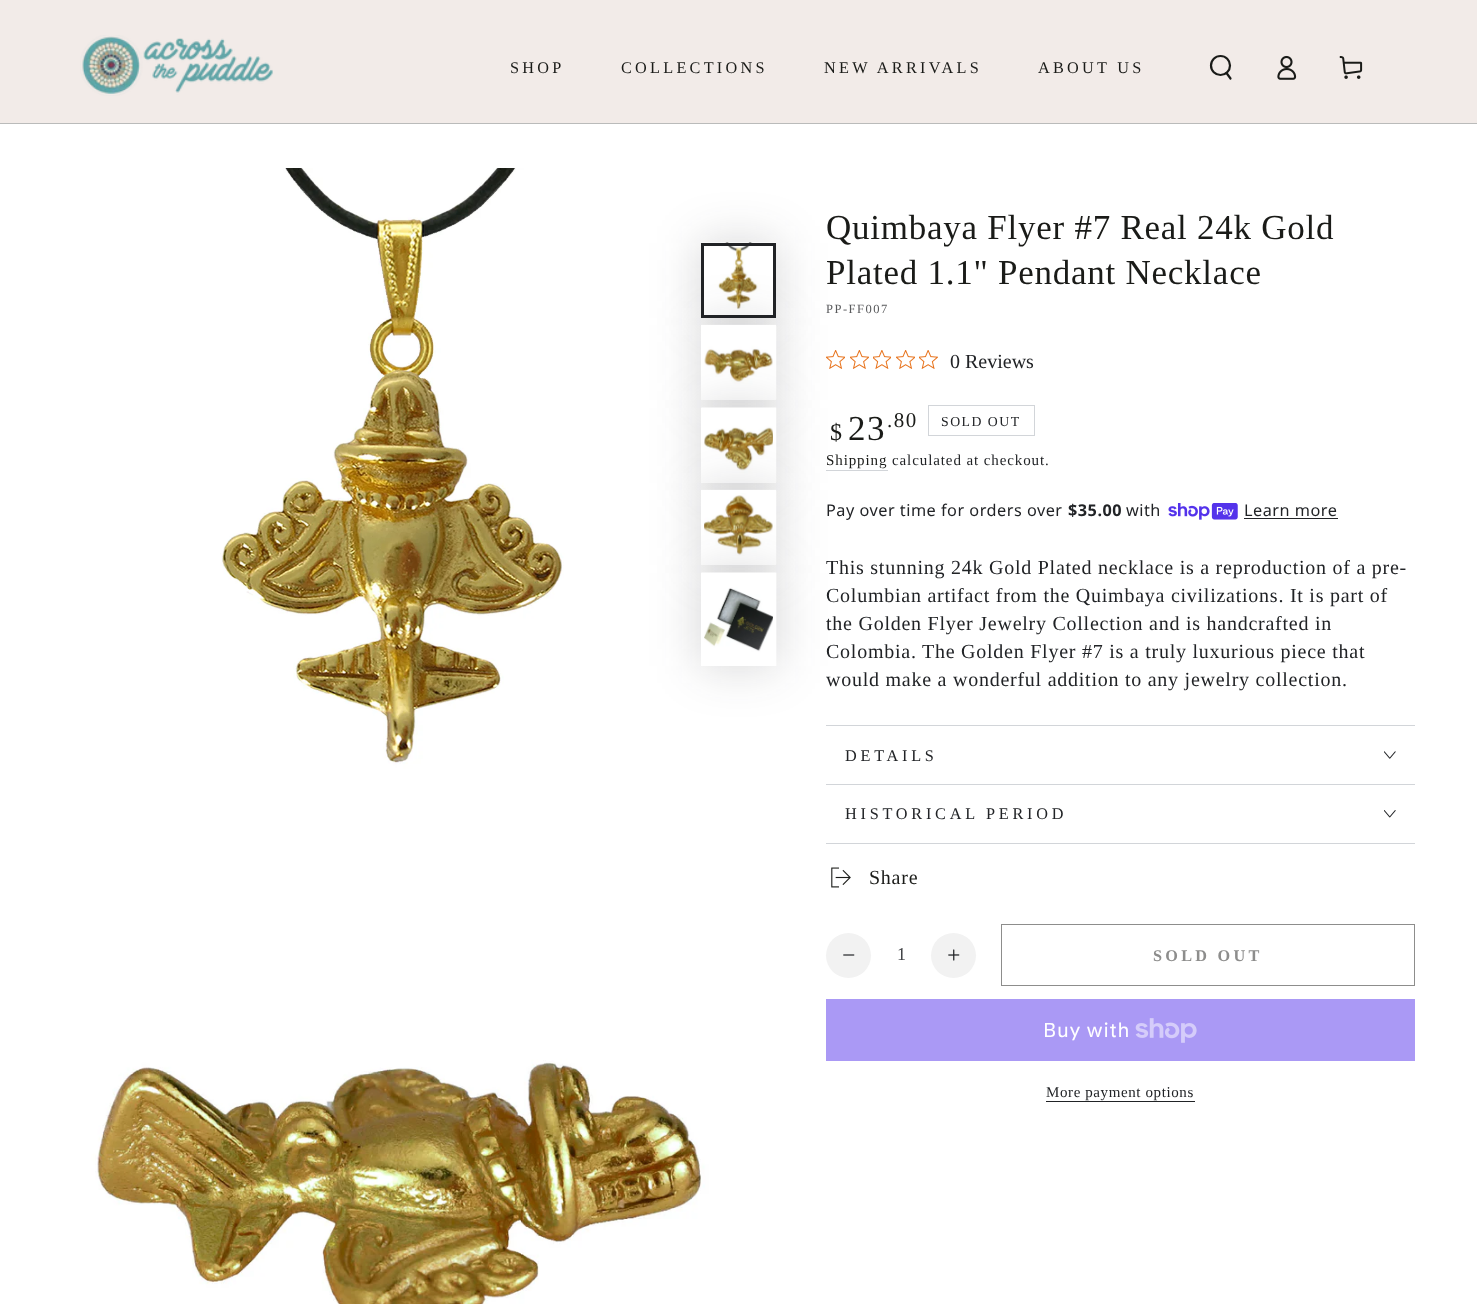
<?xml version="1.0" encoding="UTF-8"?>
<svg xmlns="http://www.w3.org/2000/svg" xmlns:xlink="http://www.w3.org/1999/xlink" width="1477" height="1304">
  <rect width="100%" height="100%" fill="#ffffff" />
  <path d="M 0 122 v 2 h 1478 v -123 v 121 z" fill="#babbba" />
  <rect width="1477" height="123" fill="#f2ebe8" />
  <image x="80" y="35" width="193" height="61" xlink:href="image1.png" />
  <circle cx="1220.5" cy="65.5" r="9.5" fill="none" stroke="#1a1b18" stroke-width="2.2" />
  <path d="M 1226.5 73 l 4 5.5" fill="none" stroke="#1a1b18" stroke-width="2.2" stroke-linecap="round" />
  <image x="1277" y="55" width="20" height="25" xlink:href="image2.png" />
  <image x="1339" y="56" width="24" height="23" xlink:href="image3.png" />
  <image x="63" y="168" width="676" height="676" xlink:href="image9.png" />
  <image x="826" y="350" width="19" height="19" xlink:href="image11.png" />
  <image x="850" y="350" width="19" height="19" xlink:href="image12.png" />
  <rect x="701" y="243" width="75" height="75" fill="#212326" fill-opacity="0.2" filter="blur(25px)" />
  <image x="701" y="242" width="75" height="73" xlink:href="image4.png" />
  <rect x="702.5" y="244.5" width="72" height="72" fill="none" stroke="#212326" stroke-width="3" />
  <rect x="826" y="470" width="62" height="1" fill="#d2d5d9" />
  <rect x="701" y="325" width="75" height="75" fill="#212326" fill-opacity="0.2" filter="blur(25px)" />
  <image x="701" y="324" width="76" height="76" xlink:href="image5.png" />
  <rect x="702.5" y="326.5" width="72" height="72" fill="none" stroke="#ffffff" stroke-width="3" />
  <rect x="701" y="408" width="75" height="75" fill="#212326" fill-opacity="0.2" filter="blur(25px)" />
  <image x="701" y="407" width="76" height="76" xlink:href="image6.png" />
  <rect x="702.5" y="409.5" width="72" height="72" fill="none" stroke="#ffffff" stroke-width="3" />
  <rect x="701" y="490" width="75" height="75" fill="#212326" fill-opacity="0.2" filter="blur(25px)" />
  <image x="701" y="489" width="76" height="76" xlink:href="image7.png" />
  <rect x="702.5" y="491.5" width="72" height="72" fill="none" stroke="#ffffff" stroke-width="3" />
  <rect x="826" y="725" width="589" height="1" fill="#d2d5d9" />
  <rect x="701" y="573" width="75" height="93" fill="#212326" fill-opacity="0.2" filter="blur(25px)" />
  <image x="701" y="572" width="76" height="94" xlink:href="image8.png" />
  <rect x="702.5" y="574.5" width="72" height="90" fill="none" stroke="#ffffff" stroke-width="3" />
  <image x="63" y="844" width="676" height="460" xlink:href="image10.png" />
  <image x="873" y="350" width="18" height="19" xlink:href="image13.png" />
  <image x="896" y="350" width="19" height="19" xlink:href="image11.png" />
  <image x="919" y="350" width="19" height="19" xlink:href="image14.png" />
  <rect x="928.5" y="405.5" width="106" height="30" fill="none" stroke="#d2d5d9" />
  <image x="1168" y="503" width="70" height="17" xlink:href="image15.png" />
  <rect x="1244" y="518" width="94" height="1" fill="#212326" />
  <rect x="826" y="784" width="589" height="1" fill="#d2d5d9" />
  <image x="1384" y="751" width="12" height="8" xlink:href="image16.png" />
  <rect x="826" y="843" width="589" height="1" fill="#d2d5d9" />
  <image x="1384" y="810" width="12" height="8" xlink:href="image17.png" />
  <image x="831" y="867" width="20" height="21" xlink:href="image18.png" />
  <circle cx="848.5" cy="955.5" r="22.5" fill="#f2f2f2" />
  <image x="843" y="954" width="12" height="2" xlink:href="image19.png" />
  <circle cx="953.5" cy="955.5" r="22.5" fill="#f2f2f2" />
  <image x="948" y="949" width="12" height="12" xlink:href="image20.png" />
  <rect x="1001.5" y="924.5" width="413" height="61" fill="none" stroke="#8d8d8c" />
  <rect x="826" y="999" width="589" height="62" fill="#aa99f5" />
  <image x="1135" y="1018" width="62" height="25" xlink:href="image21.png" />
  <rect x="1046" y="1101" width="149" height="1" fill="#212326" />
  <text x="510" y="73" style="font-family: Liberation Serif; font-size: 16.25px; letter-spacing: 3.25px; fill: #1a1b18">SHOP</text>
  <text x="621" y="73" style="font-family: Liberation Serif; font-size: 16.25px; letter-spacing: 3.25px; fill: #1a1b18">COLLECTIONS</text>
  <text x="824" y="73" style="font-family: Liberation Serif; font-size: 16.25px; letter-spacing: 3.25px; fill: #1a1b18">NEW ARRIVALS</text>
  <text x="1038" y="73" style="font-family: Liberation Serif; font-size: 16.25px; letter-spacing: 3.25px; fill: #1a1b18">ABOUT US</text>
  <text x="826" y="239" style="font-family: Liberation Serif; font-size: 35px; letter-spacing: 0.75px; fill: #1a1b18">Quimbaya Flyer #7 Real 24k Gold</text>
  <text x="826" y="284" style="font-family: Liberation Serif; font-size: 35px; letter-spacing: 0.75px; fill: #1a1b18">Plated 1.1" Pendant Necklace</text>
  <text x="826" y="313" style="font-family: Liberation Serif; font-size: 12.5px; letter-spacing: 1.5px; fill: #595a5c">PP-FF007</text>
  <text x="950" y="368" style="font-family: Liberation Serif; font-size: 20px; fill: #212326">0 Reviews</text>
  <text x="830" y="440" style="font-family: Liberation Serif; font-size: 24px; letter-spacing: 1.5px; fill: #1a1b18">$</text>
  <text x="848" y="440" style="font-family: Liberation Serif; font-size: 35px; letter-spacing: 1.5px; fill: #1a1b18">23</text>
  <text x="887" y="427" style="font-family: Liberation Serif; font-size: 21px; letter-spacing: 1.5px; fill: #1a1b18">.80</text>
  <text x="941" y="426" style="font-family: Liberation Serif; font-size: 13.75px; letter-spacing: 1.5px; fill: #212326">SOLD OUT</text>
  <text x="826" y="465" style="font-family: Liberation Serif; font-size: 15px; letter-spacing: 0.9px; fill: #1a1b18">Shipping</text>
  <text x="892" y="465" style="font-family: Liberation Serif; font-size: 15px; letter-spacing: 0.9px; fill: #212326">calculated at checkout.</text>
  <text x="826" y="516" style="font-family: Noto Sans; font-size: 16.25px; letter-spacing: 0.5px; fill: #212326">Pay over time for orders over</text>
  <text x="1068" y="516" style="font-family: Noto Sans; font-size: 16.25px; font-weight: bold; letter-spacing: 0.5px; fill: #212326">$35.00</text>
  <text x="1126" y="516" style="font-family: Noto Sans; font-size: 16.25px; letter-spacing: 0.5px; fill: #212326">with</text>
  <text x="1244" y="516" style="font-family: Noto Sans; font-size: 16.25px; letter-spacing: 0.5px; fill: #212326">Learn more</text>
  <text x="826" y="574" style="font-family: Liberation Serif; font-size: 20px; letter-spacing: 0.75px; fill: #212326">This stunning 24k Gold Plated necklace is a reproduction of a pre-</text>
  <text x="826" y="602" style="font-family: Liberation Serif; font-size: 20px; letter-spacing: 0.75px; fill: #212326">Columbian artifact from the Quimbaya civilizations. It is part of</text>
  <text x="826" y="630" style="font-family: Liberation Serif; font-size: 20px; letter-spacing: 0.75px; fill: #212326">the Golden Flyer Jewelry Collection and is handcrafted in</text>
  <text x="826" y="658" style="font-family: Liberation Serif; font-size: 20px; letter-spacing: 0.75px; fill: #212326">Colombia. The Golden Flyer #7 is a truly luxurious piece that</text>
  <text x="826" y="686" style="font-family: Liberation Serif; font-size: 20px; letter-spacing: 0.75px; fill: #212326">would make a wonderful addition to any jewelry collection.</text>
  <text x="845" y="761" style="font-family: Liberation Serif; font-size: 16.25px; letter-spacing: 3.75px; fill: #212326">DETAILS</text>
  <text x="845" y="819" style="font-family: Liberation Serif; font-size: 16.25px; letter-spacing: 3.75px; fill: #212326">HISTORICAL PERIOD</text>
  <text x="869" y="884" style="font-family: Liberation Serif; font-size: 20px; letter-spacing: 0.75px; fill: #1a1b18">Share</text>
  <text x="897" y="960" style="font-family: Liberation Serif; font-size: 18px; fill: #424447">1</text>
  <text x="1153" y="961" style="font-family: Liberation Serif; font-size: 16.25px; font-weight: bold; letter-spacing: 3.25px; fill: #8d8d8c">SOLD OUT</text>
  <text x="1043" y="1037" style="font-family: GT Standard; font-size: 20px; letter-spacing: 0.75px; fill: #ffffff">Buy with</text>
  <text x="1046" y="1097" style="font-family: Liberation Serif; font-size: 15px; letter-spacing: 0.6px; fill: #212326">More payment options</text>
</svg>
